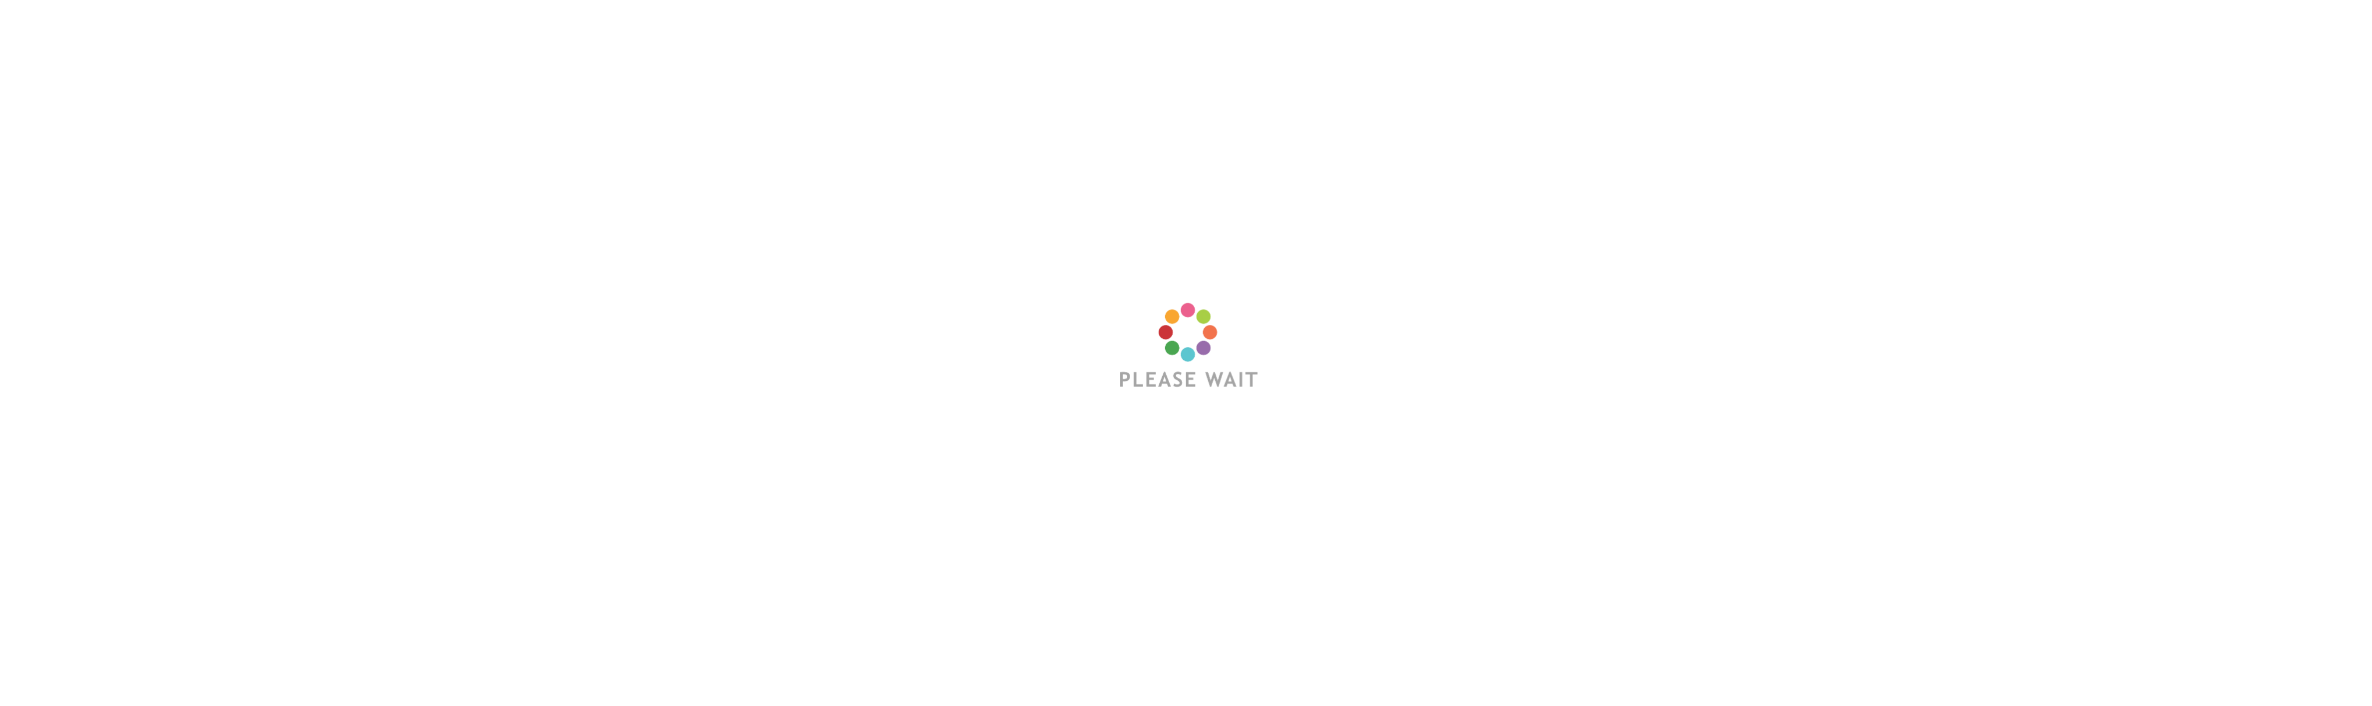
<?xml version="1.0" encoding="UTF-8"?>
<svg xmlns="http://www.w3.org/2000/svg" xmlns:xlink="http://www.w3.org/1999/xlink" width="2372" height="706">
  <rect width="100%" height="100%" fill="#ffffff" />
  <image x="1120" y="302" width="138" height="86" xlink:href="image1.png" />
</svg>
